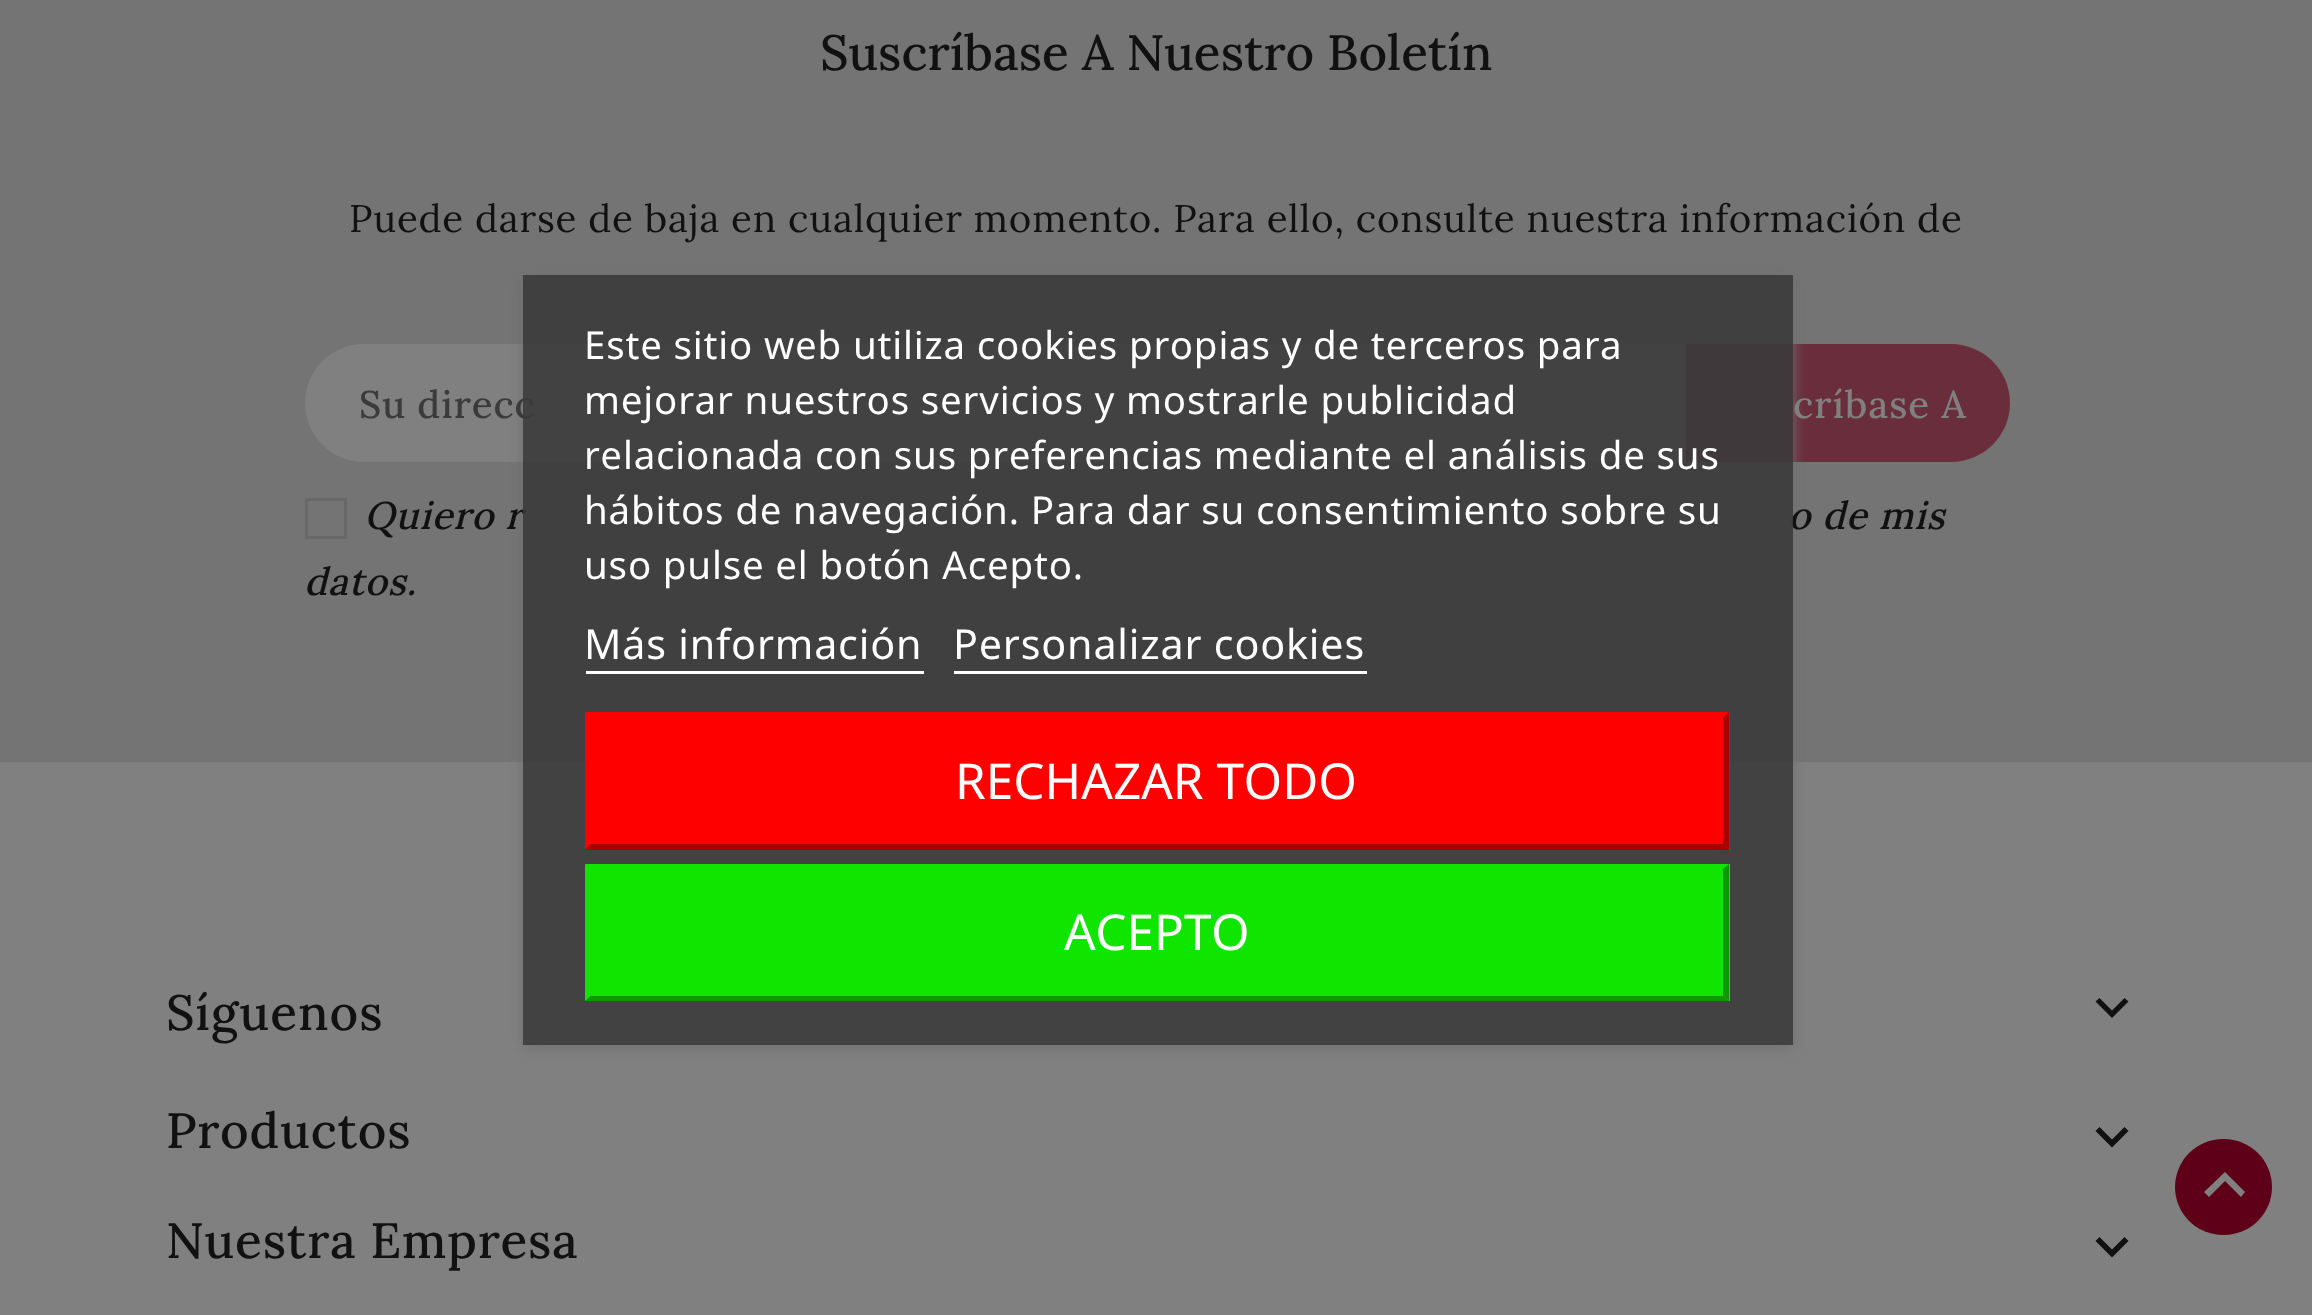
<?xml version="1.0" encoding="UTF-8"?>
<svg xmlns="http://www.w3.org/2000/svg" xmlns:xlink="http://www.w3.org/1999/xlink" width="2312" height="1315">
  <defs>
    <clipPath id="clip1"><path d="M 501 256 h 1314 v 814 h -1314 z m 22 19 h 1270 v 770 h -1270 z" clip-rule="evenodd" /></clipPath>
  </defs>
  <rect width="100%" height="100%" fill="#808080" />
  <rect width="2312" height="762" fill="#747475" />
  <rect x="305" y="344" width="1705" height="118" rx="59" fill="#808080" />
  <path d="M 1686 344 h 265 c 32.5 0 59 26.5 59 59 c 0 32.5 -26.5 59 -59 59 h -265 z" fill="#5e0017" fill-opacity="0.65" />
  <rect x="306.5" y="499.5" width="39" height="38" fill="none" stroke="#686868" stroke-width="3" />
  <g clip-path="url(#clip1)">
    <rect x="523" y="278" width="1270" height="770" fill="#707070" filter="blur(7px)" />
  </g>
  <path d="M 2099.5 998 l 12.5 12.5 l 12.5 -12.5 l 4 3.5 l -16.5 16.5 l -16.5 -16.5 z" fill="#111111" />
  <path d="M 2099.5 1127 l 12.5 12.5 l 12.5 -12.5 l 4 4 l -16.5 16.5 l -16.5 -16.5 z" fill="#111111" />
  <path d="M 2099.5 1237 l 12.5 12.5 l 12.5 -12.5 l 4 4 l -16.5 16.5 l -16.5 -16.5 z" fill="#111111" />
  <rect x="2175" y="1139" width="97" height="96" rx="48" fill="#5e0017" />
  <path d="M 2225 1172 l 20 20 l -4 5 l -16 -16 l -16 16 l -5 -5 z" fill="#808080" />
  <text x="820" y="70" style="font-family: Lora; font-size: 49.5px; font-weight: 500; fill: #111111">Suscríbase A Nuestro Boletín</text>
  <text x="349" y="232" style="font-family: Lora; font-size: 38.5px; letter-spacing: 0.82px; fill: #111111">Puede darse de baja en cualquier momento. Para ello, consulte nuestra información de</text>
  <text x="359" y="418" style="font-family: Lora; font-size: 38.5px; font-weight: 500; letter-spacing: 1px; fill: #3b3b3b">Su direcc</text>
  <text x="1793" y="418" style="font-family: Lora; font-size: 38.5px; font-weight: 500; letter-spacing: 1px; fill: #808080">críbase A</text>
  <text x="364" y="529" style="font-family: Lora; font-size: 38.5px; font-weight: 500; font-style: italic; letter-spacing: 0.82px; fill: #111111">Quiero r</text>
  <text x="1788" y="529" style="font-family: Lora; font-size: 38.5px; font-weight: 500; font-style: italic; letter-spacing: 0.82px; fill: #111111">o de mis</text>
  <text x="304" y="595" style="font-family: Lora; font-size: 38.5px; font-weight: 500; font-style: italic; letter-spacing: 0.82px; fill: #111111">datos.</text>
  <rect x="523" y="275" width="1270" height="770" fill="#3b3b3b" fill-opacity="0.9" />
  <text x="584" y="359" style="font-family: Noto Sans; font-size: 38.5px; letter-spacing: 0.82px; fill: #ffffff">Este sitio web utiliza cookies propias y de terceros para</text>
  <text x="584" y="414" style="font-family: Noto Sans; font-size: 38.5px; letter-spacing: 0.82px; fill: #ffffff">mejorar nuestros servicios y mostrarle publicidad</text>
  <text x="584" y="469" style="font-family: Noto Sans; font-size: 38.5px; letter-spacing: 0.82px; fill: #ffffff">relacionada con sus preferencias mediante el análisis de sus</text>
  <text x="584" y="524" style="font-family: Noto Sans; font-size: 38.5px; letter-spacing: 0.82px; fill: #ffffff">hábitos de navegación. Para dar su consentimiento sobre su</text>
  <text x="584" y="579" style="font-family: Noto Sans; font-size: 38.5px; letter-spacing: 0.82px; fill: #ffffff">uso pulse el botón Acepto.</text>
  <text x="584" y="659" style="font-family: Noto Sans; font-size: 41.25px; letter-spacing: 0.82px; fill: #ffffff">Más información</text>
  <rect x="586" y="671" width="338" height="3" fill="#ffffff" />
  <text x="953" y="659" style="font-family: Noto Sans; font-size: 41.25px; letter-spacing: 0.82px; fill: #ffffff">Personalizar cookies</text>
  <rect x="954" y="671" width="413" height="3" fill="#ffffff" />
  <rect x="586" y="712" width="1144" height="138" fill="#ff0000" />
  <path d="M 585 712 h 1144 l -6 6 h -1133 z" fill="#ff0000" />
  <path d="M 1729 712 v 138 l -6 -6 v -126 z" fill="#aa0000" />
  <path d="M 1729 850 h -1144 l 5 -6 h 1133 z" fill="#aa0000" />
  <path d="M 585 850 v -138 l 5 6 v 126 z" fill="#ff0000" />
  <text x="955" y="799" style="font-family: Noto Sans; font-size: 49.5px; fill: #ffffff">RECHAZAR TODO</text>
  <rect x="586" y="864" width="1144" height="137" fill="#10e500" />
  <path d="M 585 864 h 1144 l -6 5 h -1133 z" fill="#10e500" />
  <path d="M 1729 864 v 137 l -6 -5 v -127 z" fill="#0b9900" />
  <path d="M 1729 1001 h -1144 l 5 -5 h 1133 z" fill="#0b9900" />
  <path d="M 585 1001 v -137 l 5 5 v 127 z" fill="#10e500" />
  <text x="1064" y="950" style="font-family: Noto Sans; font-size: 49.5px; fill: #ffffff">ACEPTO</text>
  <text x="166" y="1030" style="font-family: Lora; font-size: 49.5px; font-weight: 500; letter-spacing: 1px; fill: #111111">Síguenos</text>
  <text x="166" y="1148" style="font-family: Lora; font-size: 49.5px; font-weight: 500; letter-spacing: 0.82px; fill: #111111">Productos</text>
  <text x="166" y="1258" style="font-family: Lora; font-size: 49.5px; font-weight: 500; letter-spacing: 0.82px; fill: #111111">Nuestra Empresa</text>
</svg>
